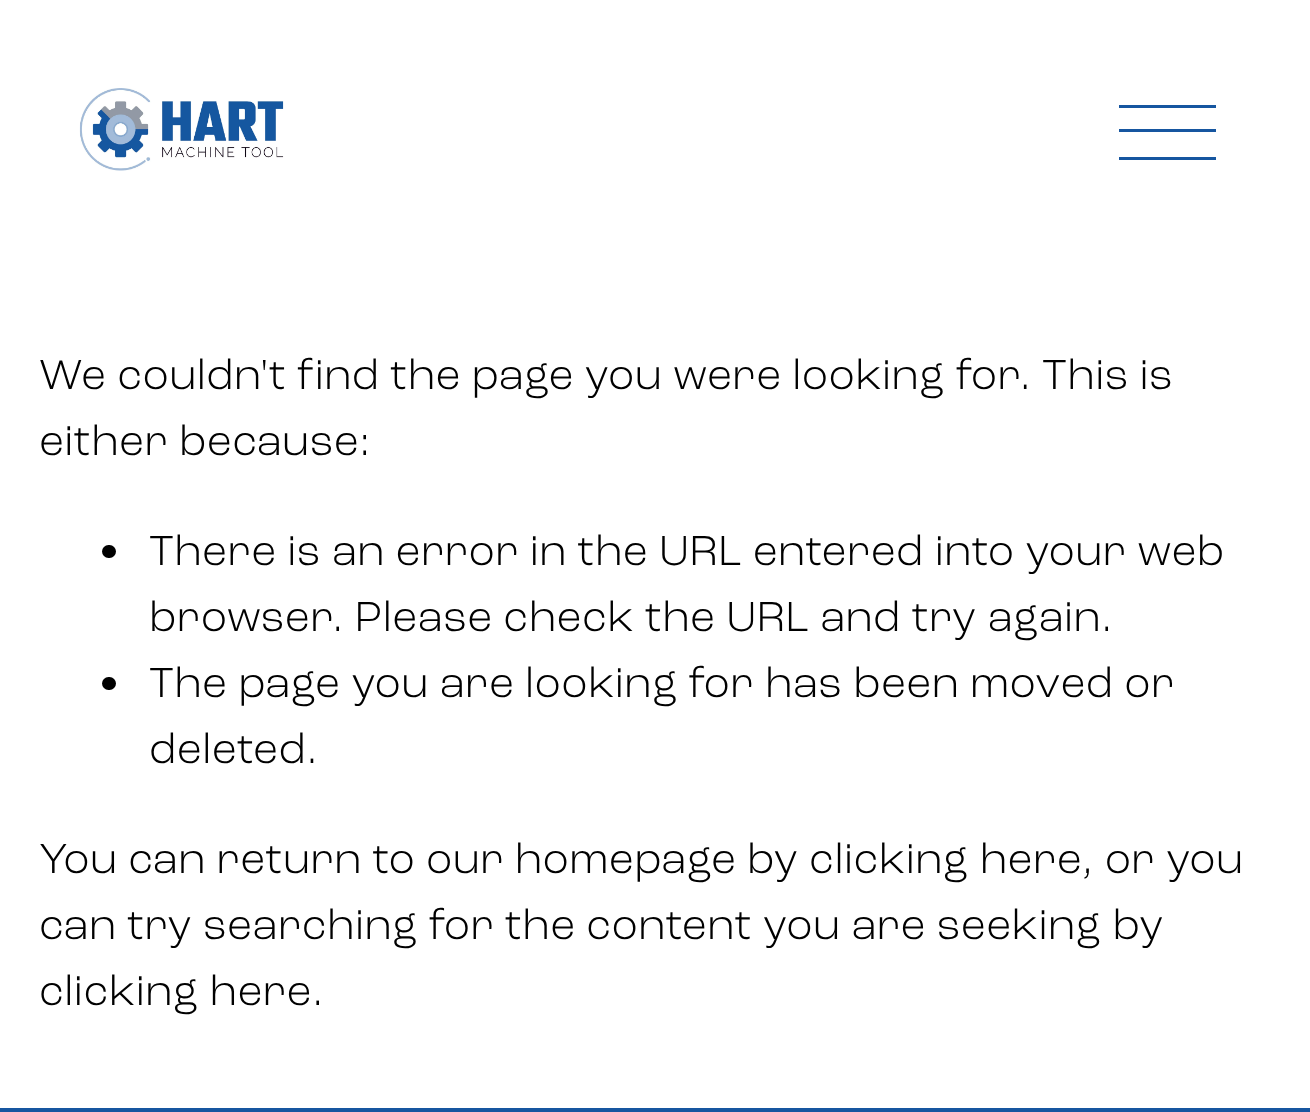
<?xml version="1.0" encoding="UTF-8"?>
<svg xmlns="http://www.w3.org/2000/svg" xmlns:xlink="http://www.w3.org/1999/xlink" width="1310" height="1112">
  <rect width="100%" height="100%" fill="#ffffff" />
  <image x="79" y="88" width="205" height="83" xlink:href="image1.png" />
  <rect x="1119" y="105" width="97" height="3" fill="#1656a0" />
  <rect x="1119" y="129" width="97" height="3" fill="#1656a0" />
  <rect x="1119" y="157" width="97" height="3" fill="#1656a0" />
  <rect x="102" y="545" width="14" height="13" rx="6.5" fill="#000000" />
  <rect x="102" y="677" width="14" height="13" rx="6.5" fill="#000000" />
  <rect y="1108" width="1310" height="4" fill="#1656a0" />
  <text x="39" y="389" style="font-family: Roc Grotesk; font-size: 44px; font-weight: 300; letter-spacing: 0.45px; fill: #000000">We couldn't find the page you were looking for. This is</text>
  <text x="39" y="455" style="font-family: Roc Grotesk; font-size: 44px; font-weight: 300; letter-spacing: 0.45px; fill: #000000">either because:</text>
  <text x="149" y="565" style="font-family: Roc Grotesk; font-size: 44px; font-weight: 300; letter-spacing: 0.45px; fill: #000000">There is an error in the URL entered into your web</text>
  <text x="149" y="631" style="font-family: Roc Grotesk; font-size: 44px; font-weight: 300; letter-spacing: 0.45px; fill: #000000">browser. Please check the URL and try again.</text>
  <text x="149" y="697" style="font-family: Roc Grotesk; font-size: 44px; font-weight: 300; letter-spacing: 0.45px; fill: #000000">The page you are looking for has been moved or</text>
  <text x="149" y="763" style="font-family: Roc Grotesk; font-size: 44px; font-weight: 300; letter-spacing: 0.45px; fill: #000000">deleted.</text>
  <text x="39" y="873" style="font-family: Roc Grotesk; font-size: 44px; font-weight: 300; letter-spacing: 0.45px; fill: #000000">You can return to our homepage by clicking here, or you</text>
  <text x="39" y="939" style="font-family: Roc Grotesk; font-size: 44px; font-weight: 300; letter-spacing: 0.45px; fill: #000000">can try searching for the content you are seeking by</text>
  <text x="39" y="1005" style="font-family: Roc Grotesk; font-size: 44px; font-weight: 300; letter-spacing: 0.45px; fill: #000000">clicking here.</text>
</svg>
